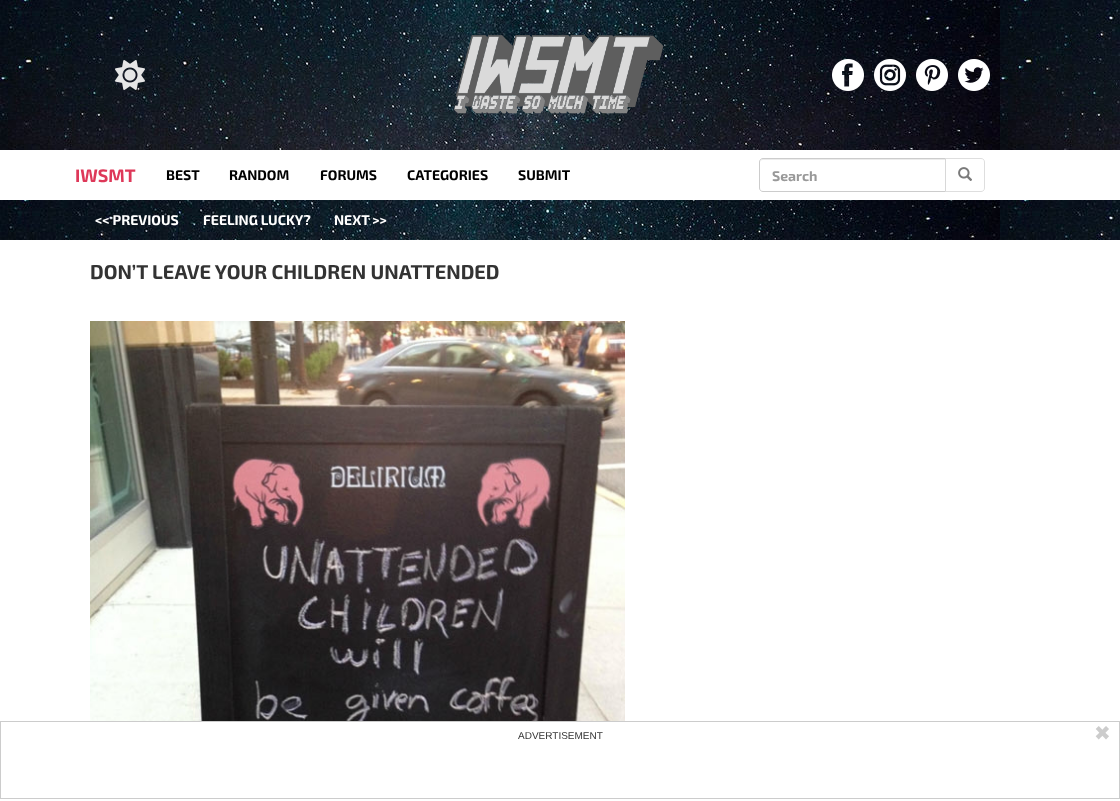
<?xml version="1.0" encoding="UTF-8"?>
<svg xmlns="http://www.w3.org/2000/svg" xmlns:xlink="http://www.w3.org/1999/xlink" width="1120" height="801">
  <rect width="100%" height="100%" fill="#ffffff" />
  <image x="0" y="0" width="1120" height="150" xlink:href="image1.png" />
  <image x="454" y="35" width="210" height="79" xlink:href="image2.png" />
  <image x="115" y="60" width="30" height="30" xlink:href="image3.png" />
  <image x="832" y="59" width="32" height="32" xlink:href="image4.png" />
  <image x="874" y="59" width="32" height="32" xlink:href="image5.png" />
  <image x="916" y="59" width="32" height="32" xlink:href="image6.png" />
  <image x="958" y="59" width="32" height="32" xlink:href="image7.png" />
  <path d="M 763 160 h 182 v -1 h -182 c -2 0 -3 2 -3 4 c 0 -2 1 -3 3 -3 z" fill="#ececec" />
  <path d="M 763 158.5 h 182.5 v 33 h -182.5 c -2 0 -3.5 -1.5 -3.5 -3.5 v -26 c 0 -2 1.5 -3.5 3.5 -3.5 z" fill="none" stroke="#cccccc" />
  <path d="M 945 158 h 36 c 2 0 4 2 4 4 v 26 c 0 2 -2 4 -4 4 h -36 z" fill="#ffffff" fill-opacity="0.65" />
  <path d="M 945.5 158.5 h 35.5 c 2 0 3.5 1.5 3.5 3.5 v 26 c 0 2 -1.5 3.5 -3.5 3.5 h -35.5 z" fill="none" stroke="#cccccc" stroke-opacity="0.65" />
  <image x="958" y="167" width="14" height="14" xlink:href="image8.png" />
  <image x="0" y="200" width="1120" height="40" xlink:href="image9.png" />
  <image x="90" y="321" width="535" height="400" xlink:href="image10.png" />
  <rect x="0.5" y="721.5" width="1119" height="77" fill="none" stroke="#cccccc" />
  <text x="75" y="182" style="font-family: 'Exo 2'; font-size: 18px; font-weight: bold; fill: #de3859">IWSMT</text>
  <text x="166" y="180" style="font-family: 'Exo 2'; font-size: 14px; font-weight: bold; fill: #000000">BEST</text>
  <text x="229" y="180" style="font-family: 'Exo 2'; font-size: 14px; font-weight: bold; fill: #000000">RANDOM</text>
  <text x="320" y="180" style="font-family: 'Exo 2'; font-size: 14px; font-weight: bold; fill: #000000">FORUMS</text>
  <text x="407" y="180" style="font-family: 'Exo 2'; font-size: 14px; font-weight: bold; fill: #000000">CATEGORIES</text>
  <text x="518" y="180" style="font-family: 'Exo 2'; font-size: 14px; font-weight: bold; fill: #000000">SUBMIT</text>
  <text x="772" y="181" style="font-family: 'Exo 2'; font-size: 14px; font-weight: bold; fill: #999999">Search</text>
  <text x="95" y="225" style="font-family: 'Exo 2'; font-size: 14px; font-weight: bold; fill: #ffffff">&lt;&lt; PREVIOUS</text>
  <text x="203" y="225" style="font-family: 'Exo 2'; font-size: 14px; font-weight: bold; fill: #ffffff">FEELING LUCKY?</text>
  <text x="334" y="225" style="font-family: 'Exo 2'; font-size: 14px; font-weight: bold; fill: #ffffff">NEXT &gt;&gt;</text>
  <text x="90" y="279" style="font-family: 'Exo 2'; font-size: 20px; font-weight: bold; fill: #333333">DON’T LEAVE YOUR CHILDREN UNATTENDED</text>
  <text x="518" y="739" style="font-family: Liberation Sans; font-size: 10px; fill: #333333">ADVERTISEMENT</text>
  <text x="1094" y="740" style="font-family: DejaVu Sans; font-size: 20px; fill: #cccccc">✖</text>
</svg>
